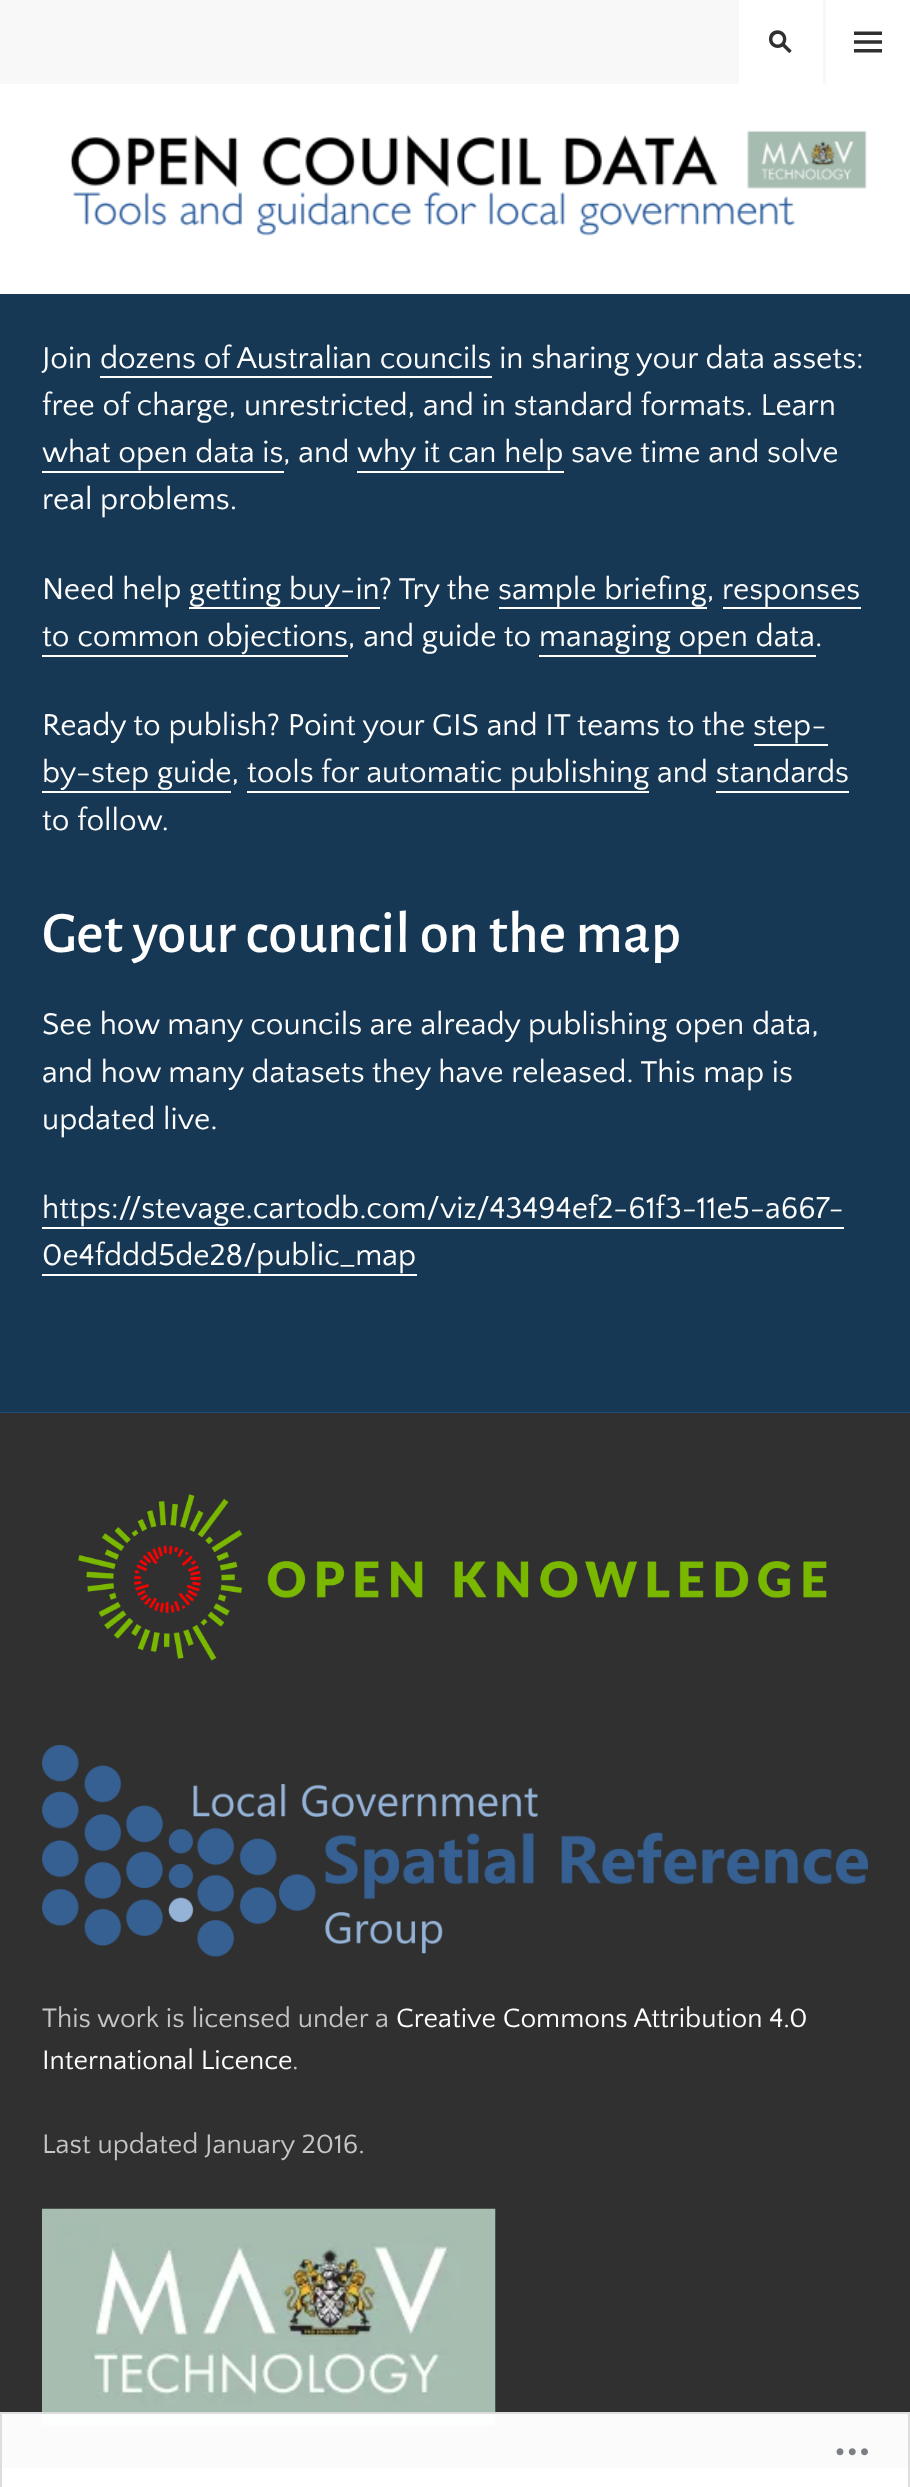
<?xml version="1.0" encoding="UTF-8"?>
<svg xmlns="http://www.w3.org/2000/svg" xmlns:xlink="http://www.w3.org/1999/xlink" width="910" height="2487">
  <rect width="100%" height="100%" fill="#ffffff" />
  <rect width="826" height="84" fill="#f8f8f8" />
  <rect x="739" width="84" height="84" fill="#ffffff" />
  <image x="769" y="30" width="23" height="24" xlink:href="image1.png" />
  <image x="854" y="31" width="28" height="22" xlink:href="image2.png" />
  <image x="70" y="130" width="797" height="106" xlink:href="image3.png" />
  <rect y="1412" width="910" height="1" fill="#214f77" />
  <rect y="294" width="910" height="1118" fill="#173854" />
  <rect x="100" y="376" width="392" height="2" fill="#ffffff" />
  <rect x="42" y="471" width="242" height="2" fill="#ffffff" />
  <rect x="357" y="471" width="207" height="2" fill="#ffffff" />
  <rect x="189" y="607" width="191" height="2" fill="#ffffff" />
  <rect x="499" y="607" width="208" height="2" fill="#ffffff" />
  <rect x="723" y="607" width="138" height="2" fill="#ffffff" />
  <rect x="42" y="655" width="306" height="2" fill="#ffffff" />
  <rect x="539" y="655" width="277" height="2" fill="#ffffff" />
  <rect x="754" y="744" width="74" height="2" fill="#ffffff" />
  <rect x="42" y="791" width="189" height="2" fill="#ffffff" />
  <rect x="247" y="791" width="402" height="2" fill="#ffffff" />
  <rect x="716" y="791" width="133" height="2" fill="#ffffff" />
  <rect x="42" y="1227" width="802" height="2" fill="#ffffff" />
  <rect x="42" y="1274" width="375" height="2" fill="#ffffff" />
  <rect y="1413" width="910" height="1055" fill="#303030" />
  <image x="78" y="1494" width="749" height="167" xlink:href="image4.png" />
  <image x="42" y="1744" width="826" height="213" xlink:href="image5.png" />
  <image x="42" y="2208" width="454" height="218" xlink:href="image6.png" />
  <rect y="2468" width="910" height="2" fill="#f8f8f8" />
  <rect y="2412" width="910" height="58" fill="#ffffff" fill-opacity="0.98" />
  <rect x="1" y="2413" width="908" height="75" fill="none" stroke="#dcdcde" stroke-opacity="0.98" stroke-width="2" />
  <image x="836" y="2448" width="32" height="8" xlink:href="image7.png" />
  <text x="42" y="368" style="font-family: Quattrocento Sans; font-size: 31.5px; fill: #ffffff">Join dozens of Australian councils in sharing your data assets:</text>
  <text x="42" y="415" style="font-family: Quattrocento Sans; font-size: 31.5px; fill: #ffffff">free of charge, unrestricted, and in standard formats. Learn</text>
  <text x="42" y="462" style="font-family: Quattrocento Sans; font-size: 31.5px; fill: #ffffff">what open data is</text>
  <text x="283" y="462" style="font-family: Quattrocento Sans; font-size: 31.5px; fill: #ffffff">, and</text>
  <text x="357" y="462" style="font-family: Quattrocento Sans; font-size: 31.5px; fill: #ffffff">why it can help save time and solve</text>
  <text x="42" y="509" style="font-family: Quattrocento Sans; font-size: 31.5px; fill: #ffffff">real problems.</text>
  <text x="42" y="599" style="font-family: Quattrocento Sans; font-size: 31.5px; fill: #ffffff">Need help</text>
  <text x="189" y="599" style="font-family: Quattrocento Sans; font-size: 31.5px; fill: #ffffff">getting buy-in</text>
  <text x="379" y="599" style="font-family: Quattrocento Sans; font-size: 31.5px; fill: #ffffff">? Try the</text>
  <text x="498" y="599" style="font-family: Quattrocento Sans; font-size: 31.5px; fill: #ffffff">sample briefing,</text>
  <text x="722" y="599" style="font-family: Quattrocento Sans; font-size: 31.5px; fill: #ffffff">responses</text>
  <text x="42" y="646" style="font-family: Quattrocento Sans; font-size: 31.5px; fill: #ffffff">to common objections, and guide to managing open data.</text>
  <text x="42" y="735" style="font-family: Quattrocento Sans; font-size: 31.5px; fill: #ffffff">Ready to publish? Point your GIS and IT teams to the step-</text>
  <text x="42" y="782" style="font-family: Quattrocento Sans; font-size: 31.5px; fill: #ffffff">by-step guide,</text>
  <text x="247" y="782" style="font-family: Quattrocento Sans; font-size: 31.5px; fill: #ffffff">tools for automatic publishing and standards</text>
  <text x="42" y="830" style="font-family: Quattrocento Sans; font-size: 31.5px; fill: #ffffff">to follow.</text>
  <text x="42" y="952" style="font-family: Alegreya Sans; font-size: 59px; font-weight: 500; fill: #ffffff">Get your council on the map</text>
  <text x="42" y="1034" style="font-family: Quattrocento Sans; font-size: 31.5px; fill: #ffffff">See how many councils are already publishing open data,</text>
  <text x="42" y="1082" style="font-family: Quattrocento Sans; font-size: 31.5px; fill: #ffffff">and how many datasets they have released. This map is</text>
  <text x="42" y="1129" style="font-family: Quattrocento Sans; font-size: 31.5px; fill: #ffffff">updated live.</text>
  <text x="42" y="1218" style="font-family: Quattrocento Sans; font-size: 31.5px; fill: #ffffff">https://stevage.cartodb.com/viz/43494ef2-61f3-11e5-a667-</text>
  <text x="42" y="1265" style="font-family: Quattrocento Sans; font-size: 31.5px; fill: #ffffff">0e4fddd5de28/public_map</text>
  <text x="42" y="2027" style="font-family: Quattrocento Sans; font-size: 28px; fill: #c5c5c5">This work is licensed under a</text>
  <text x="396" y="2027" style="font-family: Quattrocento Sans; font-size: 28px; fill: #ffffff">Creative Commons Attribution 4.0</text>
  <text x="42" y="2069" style="font-family: Quattrocento Sans; font-size: 28px; fill: #ffffff">International Licence</text>
  <text x="292" y="2069" style="font-family: Quattrocento Sans; font-size: 28px; fill: #c5c5c5">.</text>
  <text x="42" y="2153" style="font-family: Quattrocento Sans; font-size: 28px; fill: #c5c5c5">Last updated January 2016.</text>
</svg>
